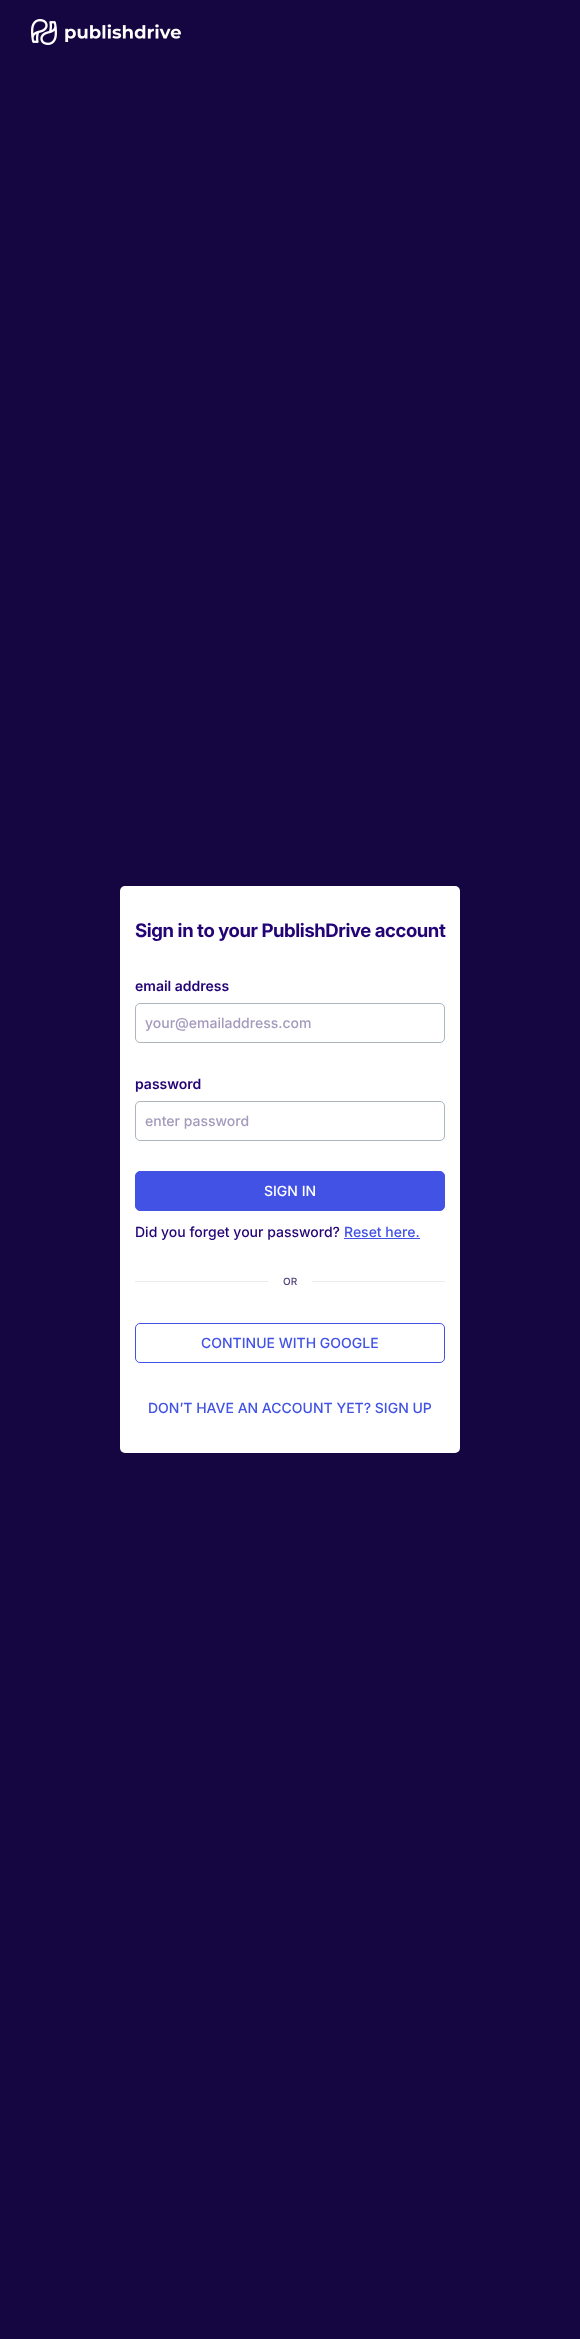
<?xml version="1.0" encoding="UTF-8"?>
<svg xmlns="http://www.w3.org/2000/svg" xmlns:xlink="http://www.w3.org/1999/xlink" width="580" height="2339">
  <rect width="100%" height="100%" fill="#150540" />
  <image x="31" y="19" width="150" height="26" xlink:href="image1.png" />
  <rect x="120" y="886" width="340" height="567" rx="5" fill="#ffffff" />
  <rect x="135.5" y="1003.5" width="309" height="39" rx="4.5" fill="none" stroke="#adb5bd" />
  <rect x="135.5" y="1101.5" width="309" height="39" rx="4.5" fill="none" stroke="#adb5bd" />
  <rect x="135.5" y="1171.5" width="309" height="39" rx="4.5" fill="#4252e5" stroke="#4252e5" />
  <rect x="344" y="1238" width="76" height="1" fill="#4252e5" />
  <rect x="135" y="1281" width="310" height="1" fill="#e9ecef" />
  <rect x="268" y="1281" width="44" height="1" fill="#ffffff" />
  <rect x="135.5" y="1323.5" width="309" height="39" rx="4.5" fill="none" stroke="#4252e5" />
  <text x="135" y="937" style="font-family: Inter; font-size: 18.7px; font-weight: bold; letter-spacing: -0.4px; fill: #230375">Sign in to your PublishDrive account</text>
  <text x="135" y="991" style="font-family: Inter; font-size: 14px; font-weight: 600; fill: #230375">email address</text>
  <text x="145" y="1028" style="font-family: Inter; font-size: 14px; font-weight: 500; fill: #a39abd">your@emailaddress.com</text>
  <text x="135" y="1089" style="font-family: Inter; font-size: 14px; font-weight: 600; fill: #230375">password</text>
  <text x="145" y="1126" style="font-family: Inter; font-size: 14px; font-weight: 500; fill: #a39abd">enter password</text>
  <text x="264" y="1196" style="font-family: Inter; font-size: 14px; font-weight: 500; fill: #ffffff">SIGN IN</text>
  <text x="135" y="1237" style="font-family: Inter; font-size: 14px; font-weight: 500; fill: #230375">Did you forget your password?</text>
  <text x="344" y="1237" style="font-family: Inter; font-size: 14px; font-weight: 500; fill: #4252e5">Reset here.</text>
  <text x="283" y="1285" style="font-family: Inter; font-size: 10px; font-weight: 500; fill: #52427b">OR</text>
  <text x="201" y="1348" style="font-family: Inter; font-size: 14px; font-weight: 500; fill: #4252e5">CONTINUE WITH GOOGLE</text>
  <text x="148" y="1413" style="font-family: Inter; font-size: 14px; font-weight: 500; fill: #4252e5">DON’T HAVE AN ACCOUNT YET? SIGN UP</text>
</svg>
